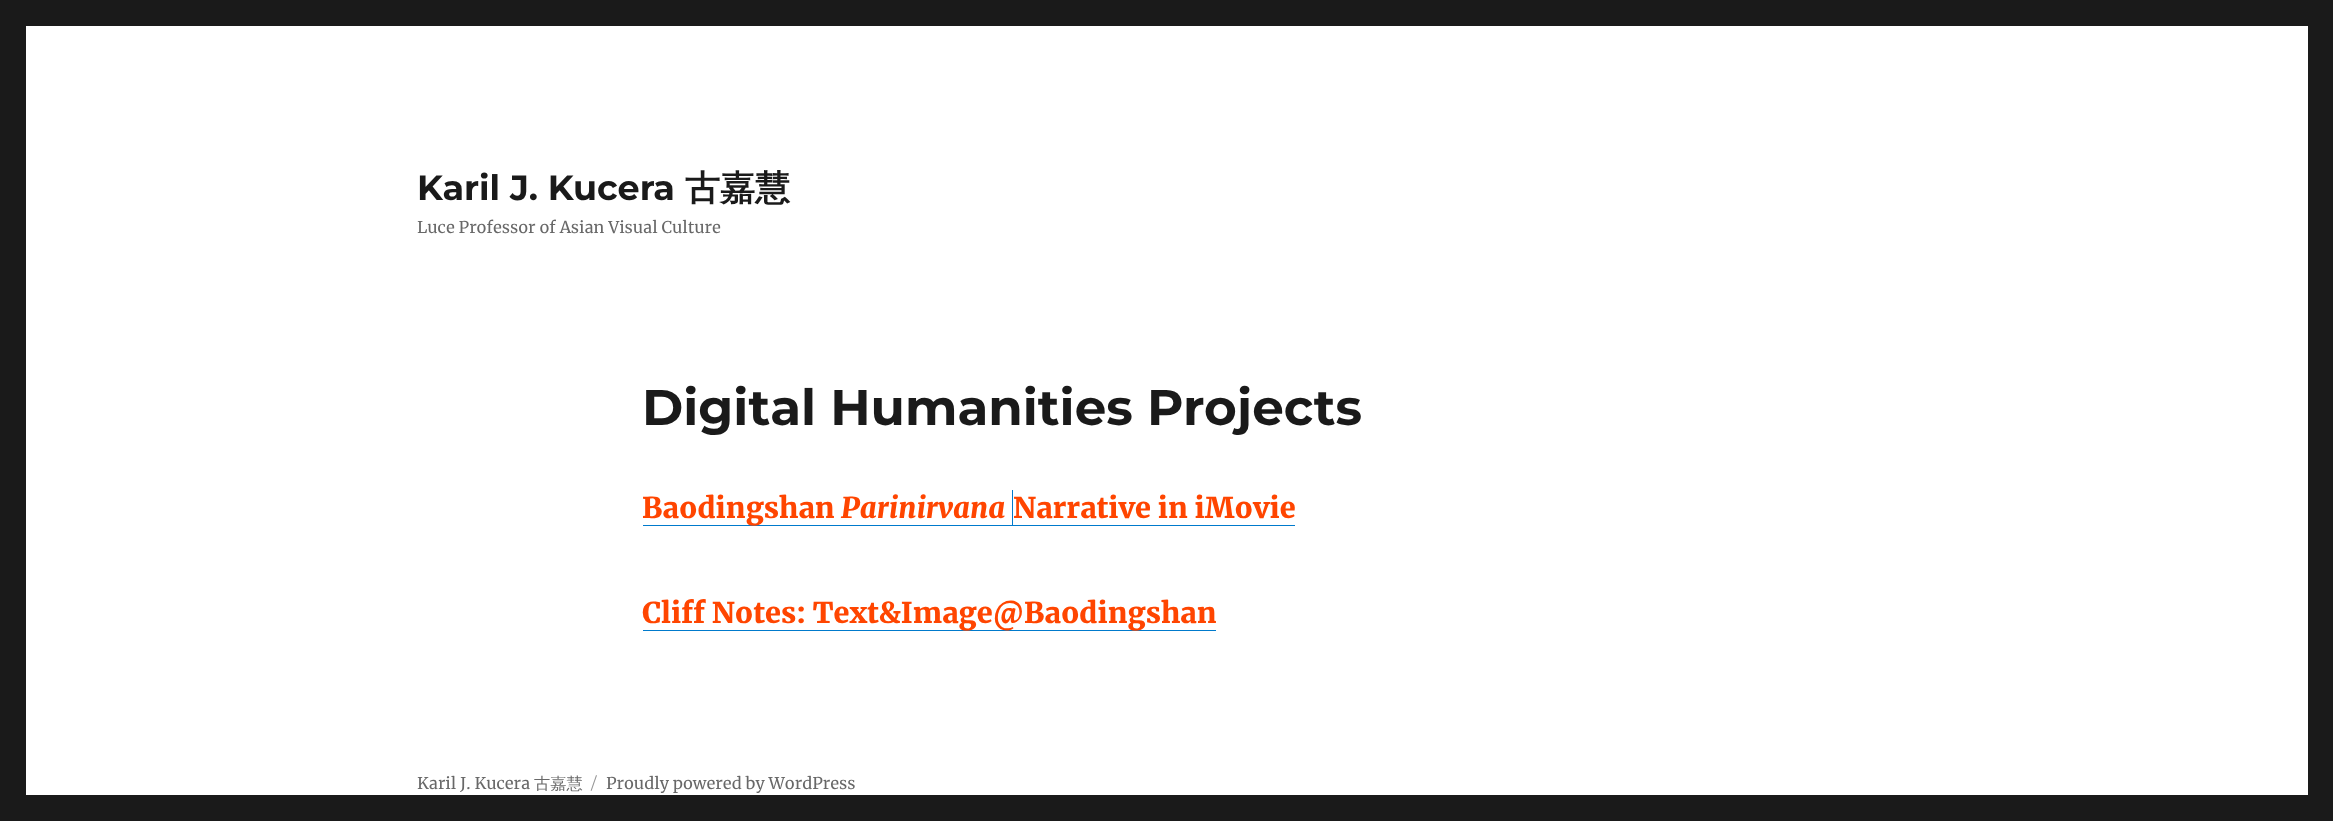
<?xml version="1.0" encoding="UTF-8"?>
<svg xmlns="http://www.w3.org/2000/svg" xmlns:xlink="http://www.w3.org/1999/xlink" width="2333" height="821">
  <rect width="100%" height="100%" fill="#1a1a1a" />
  <rect x="26" y="26" width="2282" height="769" fill="#ffffff" />
  <rect x="643" y="525" width="198" height="1" fill="#007acc" />
  <path d="M 841 490 v 36 h 172 v -36 h -1 v 35 h -171 z" fill="#007acc" />
  <rect x="1013" y="525" width="282" height="1" fill="#007acc" />
  <rect x="643" y="630" width="573" height="1" fill="#007acc" />
  <text x="417" y="200" style="font-family: Montserrat; font-size: 35px; font-weight: 100; fill: #1a1a1a">Karil J. Kucera</text>
  <text x="685" y="200" style="font-family: WenQuanYi Zen Hei; font-size: 35px; font-weight: bold; fill: #1a1a1a">古嘉慧</text>
  <text x="417" y="233" style="font-family: Merriweather; font-size: 16.25px; fill: #686868">Luce Professor of Asian Visual Culture</text>
  <text x="642" y="425" style="font-family: Montserrat; font-size: 50px; font-weight: 100; fill: #1a1a1a">Digital Humanities Projects</text>
  <text x="642" y="518" style="font-family: Merriweather; font-size: 28.75px; font-weight: 900; fill: #ff4500">Baodingshan</text>
  <text x="841" y="518" style="font-family: Merriweather; font-size: 28.75px; font-weight: 900; font-style: italic; fill: #ff4500">Parinirvana</text>
  <text x="1013" y="518" style="font-family: Merriweather; font-size: 28.75px; font-weight: 900; fill: #ff4500">Narrative in iMovie</text>
  <text x="642" y="623" style="font-family: Merriweather; font-size: 28.75px; font-weight: 900; fill: #ff4500">Cliff Notes: Text&amp;Image@Baodingshan</text>
  <text x="417" y="789" style="font-family: Merriweather; font-size: 16.25px; fill: #686868">Karil J. Kucera</text>
  <text x="534" y="789" style="font-family: WenQuanYi Zen Hei; font-size: 16.25px; font-weight: 500; fill: #686868">古嘉慧</text>
  <text x="591" y="789" style="font-family: 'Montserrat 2'; font-size: 16.25px; font-weight: 100; fill: #959595">/</text>
  <text x="606" y="789" style="font-family: Merriweather; font-size: 16.25px; fill: #686868">Proudly powered by WordPress</text>
</svg>
